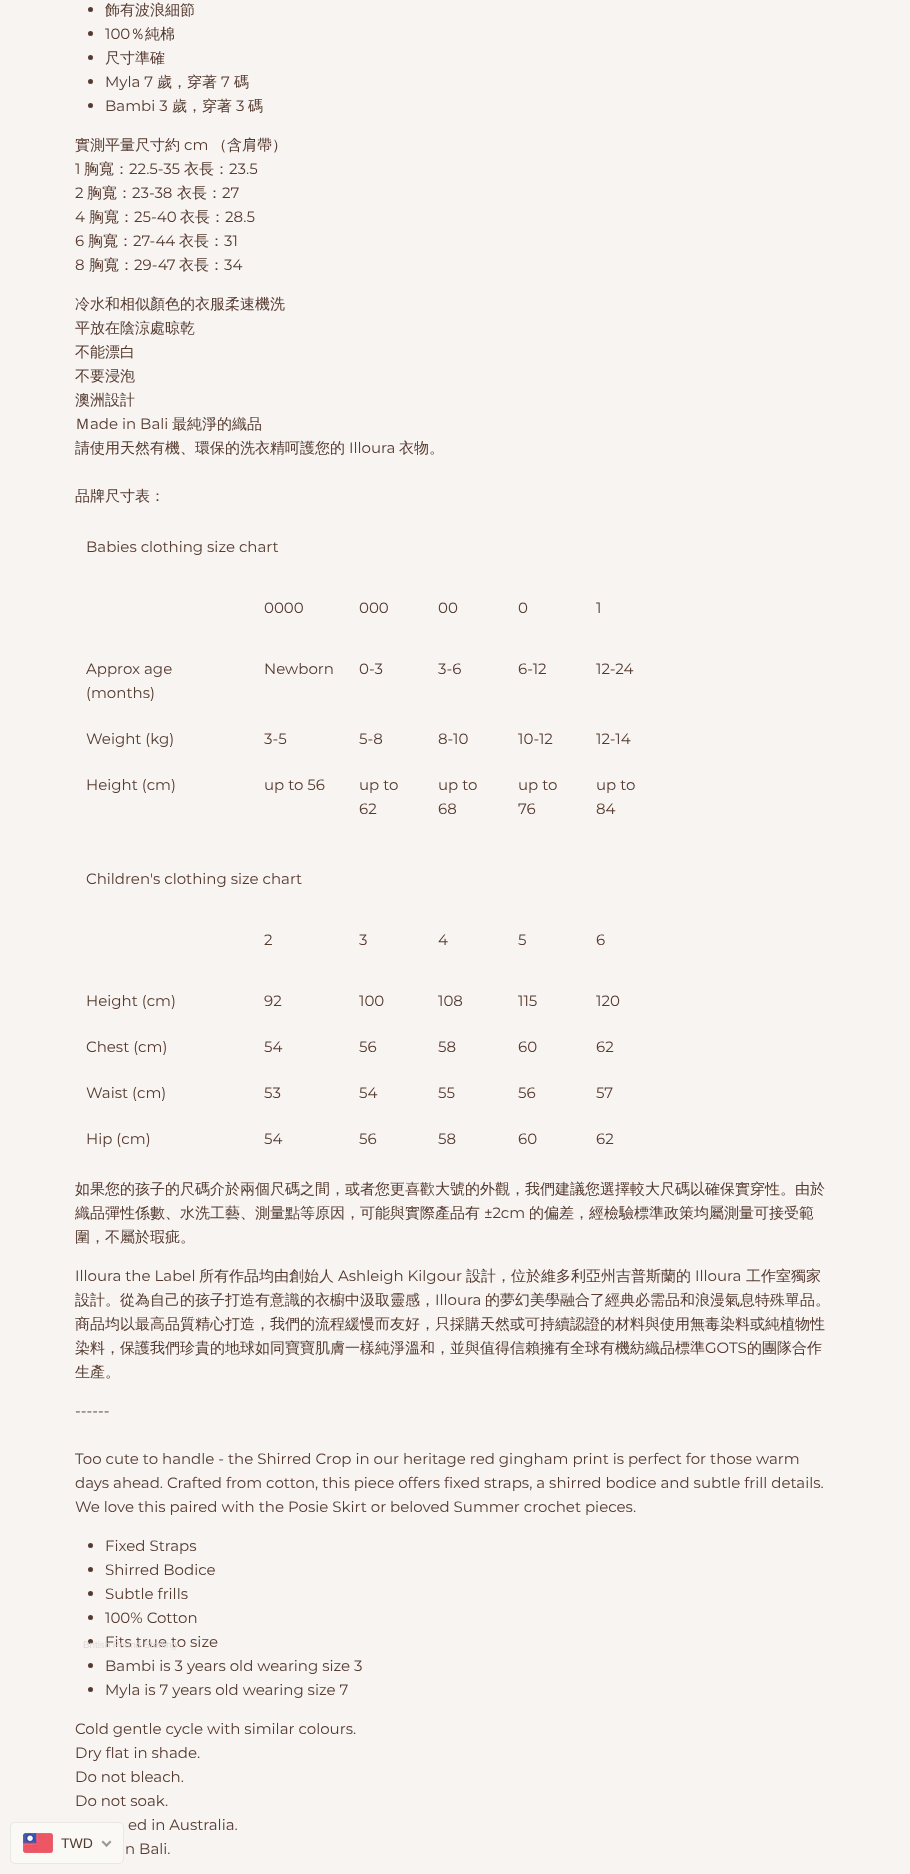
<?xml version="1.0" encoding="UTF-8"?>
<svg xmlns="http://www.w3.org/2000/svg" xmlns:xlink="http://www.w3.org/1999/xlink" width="910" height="1874">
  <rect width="100%" height="100%" fill="#f7f4f2" />
  <circle cx="90.5" cy="9.5" r="2.5" fill="#553a2f" />
  <circle cx="90.5" cy="33.5" r="2.5" fill="#553a2f" />
  <circle cx="90.5" cy="57.5" r="2.5" fill="#553a2f" />
  <circle cx="90.5" cy="81.5" r="2.5" fill="#553a2f" />
  <circle cx="90.5" cy="105.5" r="2.5" fill="#553a2f" />
  <circle cx="90.5" cy="1545.5" r="2.5" fill="#553a2f" />
  <circle cx="90.5" cy="1569.5" r="2.5" fill="#553a2f" />
  <circle cx="90.5" cy="1593.5" r="2.5" fill="#553a2f" />
  <circle cx="90.5" cy="1617.5" r="2.5" fill="#553a2f" />
  <circle cx="90.5" cy="1641.5" r="2.5" fill="#553a2f" />
  <circle cx="90.5" cy="1665.5" r="2.5" fill="#553a2f" />
  <circle cx="90.5" cy="1689.5" r="2.5" fill="#553a2f" />
  <rect x="10.5" y="1822.5" width="113" height="41" rx="4.5" fill="#faf9f5" stroke="#e8e8e8" />
  <image x="23" y="1833" width="30" height="20" xlink:href="image1.png" />
  <path d="M 110 1840.5 l 1.5 1.5 l -5 5 l -1.5 -1.5 z" fill="#999999" />
  <path d="M 103 1840.5 l 5 5 l -1.5 1.5 l -5 -5 z" fill="#999999" />
  <text x="105" y="15" style="font-family: WenQuanYi Zen Hei; font-size: 15px; font-weight: 500; fill: #553a2f">飾有波浪細節</text>
  <text x="105" y="39" style="font-family: Montserrat; font-size: 15px; fill: #553a2f">100</text>
  <text x="130" y="39" style="font-family: WenQuanYi Zen Hei; font-size: 15px; font-weight: 500; fill: #553a2f">％純棉</text>
  <text x="105" y="63" style="font-family: WenQuanYi Zen Hei; font-size: 15px; font-weight: 500; fill: #553a2f">尺寸準確</text>
  <text x="105" y="87" style="font-family: Montserrat; font-size: 15px; fill: #553a2f">Myla 7</text>
  <text x="157" y="87" style="font-family: WenQuanYi Zen Hei; font-size: 15px; font-weight: 500; fill: #553a2f">歲，穿著</text>
  <text x="221" y="87" style="font-family: Montserrat; font-size: 15px; fill: #553a2f">7</text>
  <text x="234" y="87" style="font-family: WenQuanYi Zen Hei; font-size: 15px; font-weight: 500; fill: #553a2f">碼</text>
  <text x="105" y="111" style="font-family: Montserrat; font-size: 15px; fill: #553a2f">Bambi 3</text>
  <text x="172" y="111" style="font-family: WenQuanYi Zen Hei; font-size: 15px; font-weight: 500; fill: #553a2f">歲，穿著</text>
  <text x="236" y="111" style="font-family: Montserrat; font-size: 15px; fill: #553a2f">3</text>
  <text x="248" y="111" style="font-family: WenQuanYi Zen Hei; font-size: 15px; font-weight: 500; fill: #553a2f">碼</text>
  <text x="75" y="150" style="font-family: WenQuanYi Zen Hei; font-size: 15px; font-weight: 500; fill: #553a2f">實測平量尺寸約</text>
  <text x="184" y="150" style="font-family: Montserrat; font-size: 15px; fill: #553a2f">cm</text>
  <text x="212" y="150" style="font-family: WenQuanYi Zen Hei; font-size: 15px; font-weight: 500; fill: #553a2f">（含肩帶）</text>
  <text x="75" y="174" style="font-family: Montserrat; font-size: 15px; fill: #553a2f">1</text>
  <text x="84" y="174" style="font-family: WenQuanYi Zen Hei; font-size: 15px; font-weight: 500; fill: #553a2f">胸寬：</text>
  <text x="129" y="174" style="font-family: Montserrat; font-size: 15px; fill: #553a2f">22.5-35</text>
  <text x="184" y="174" style="font-family: WenQuanYi Zen Hei; font-size: 15px; font-weight: 500; fill: #553a2f">衣長：</text>
  <text x="229" y="174" style="font-family: Montserrat; font-size: 15px; fill: #553a2f">23.5</text>
  <text x="75" y="198" style="font-family: Montserrat; font-size: 15px; fill: #553a2f">2</text>
  <text x="87" y="198" style="font-family: WenQuanYi Zen Hei; font-size: 15px; font-weight: 500; fill: #553a2f">胸寬：</text>
  <text x="132" y="198" style="font-family: Montserrat; font-size: 15px; fill: #553a2f">23-38</text>
  <text x="177" y="198" style="font-family: WenQuanYi Zen Hei; font-size: 15px; font-weight: 500; fill: #553a2f">衣長：</text>
  <text x="222" y="198" style="font-family: Montserrat; font-size: 15px; fill: #553a2f">27</text>
  <text x="75" y="222" style="font-family: Montserrat; font-size: 15px; fill: #553a2f">4</text>
  <text x="89" y="222" style="font-family: WenQuanYi Zen Hei; font-size: 15px; font-weight: 500; fill: #553a2f">胸寬：</text>
  <text x="134" y="222" style="font-family: Montserrat; font-size: 15px; fill: #553a2f">25-40</text>
  <text x="180" y="222" style="font-family: WenQuanYi Zen Hei; font-size: 15px; font-weight: 500; fill: #553a2f">衣長：</text>
  <text x="225" y="222" style="font-family: Montserrat; font-size: 15px; fill: #553a2f">28.5</text>
  <text x="75" y="246" style="font-family: Montserrat; font-size: 15px; fill: #553a2f">6</text>
  <text x="88" y="246" style="font-family: WenQuanYi Zen Hei; font-size: 15px; font-weight: 500; fill: #553a2f">胸寬：</text>
  <text x="133" y="246" style="font-family: Montserrat; font-size: 15px; fill: #553a2f">27-44</text>
  <text x="179" y="246" style="font-family: WenQuanYi Zen Hei; font-size: 15px; font-weight: 500; fill: #553a2f">衣長：</text>
  <text x="224" y="246" style="font-family: Montserrat; font-size: 15px; fill: #553a2f">31</text>
  <text x="75" y="270" style="font-family: Montserrat; font-size: 15px; fill: #553a2f">8</text>
  <text x="89" y="270" style="font-family: WenQuanYi Zen Hei; font-size: 15px; font-weight: 500; fill: #553a2f">胸寬：</text>
  <text x="134" y="270" style="font-family: Montserrat; font-size: 15px; fill: #553a2f">29-47</text>
  <text x="179" y="270" style="font-family: WenQuanYi Zen Hei; font-size: 15px; font-weight: 500; fill: #553a2f">衣長：</text>
  <text x="224" y="270" style="font-family: Montserrat; font-size: 15px; fill: #553a2f">34</text>
  <text x="75" y="309" style="font-family: WenQuanYi Zen Hei; font-size: 15px; font-weight: 500; fill: #553a2f">冷水和相似顏色的衣服柔速機洗</text>
  <text x="75" y="333" style="font-family: WenQuanYi Zen Hei; font-size: 15px; font-weight: 500; fill: #553a2f">平放在陰涼處晾乾</text>
  <text x="75" y="357" style="font-family: WenQuanYi Zen Hei; font-size: 15px; font-weight: 500; fill: #553a2f">不能漂白</text>
  <text x="75" y="381" style="font-family: WenQuanYi Zen Hei; font-size: 15px; font-weight: 500; fill: #553a2f">不要浸泡</text>
  <text x="75" y="405" style="font-family: WenQuanYi Zen Hei; font-size: 15px; font-weight: 500; fill: #553a2f">澳洲設計</text>
  <text x="75" y="429" style="font-family: WenQuanYi Zen Hei; font-size: 15px; font-weight: 500; fill: #553a2f">Ｍ</text>
  <text x="90" y="429" style="font-family: Montserrat; font-size: 15px; fill: #553a2f">ade in Bali</text>
  <text x="172" y="429" style="font-family: WenQuanYi Zen Hei; font-size: 15px; font-weight: 500; fill: #553a2f">最純淨的織品</text>
  <text x="75" y="453" style="font-family: WenQuanYi Zen Hei; font-size: 15px; font-weight: 500; fill: #553a2f">請使用天然有機、環保的洗衣精呵護您的</text>
  <text x="349" y="453" style="font-family: Montserrat; font-size: 15px; fill: #553a2f">Illoura</text>
  <text x="399" y="453" style="font-family: WenQuanYi Zen Hei; font-size: 15px; font-weight: 500; fill: #553a2f">衣物。</text>
  <text x="75" y="501" style="font-family: WenQuanYi Zen Hei; font-size: 15px; font-weight: 500; fill: #553a2f">品牌尺寸表：</text>
  <text x="86" y="552" style="font-family: Montserrat; font-size: 15px; fill: #553a2f">Babies clothing size chart</text>
  <text x="264" y="613" style="font-family: Montserrat; font-size: 15px; fill: #553a2f">0000</text>
  <text x="359" y="613" style="font-family: Montserrat; font-size: 15px; fill: #553a2f">000</text>
  <text x="438" y="613" style="font-family: Montserrat; font-size: 15px; fill: #553a2f">00</text>
  <text x="518" y="613" style="font-family: Montserrat; font-size: 15px; fill: #553a2f">0</text>
  <text x="596" y="613" style="font-family: Montserrat; font-size: 15px; fill: #553a2f">1</text>
  <text x="86" y="674" style="font-family: Montserrat; font-size: 15px; fill: #553a2f">Approx age</text>
  <text x="86" y="698" style="font-family: Montserrat; font-size: 15px; fill: #553a2f">(months)</text>
  <text x="264" y="674" style="font-family: Montserrat; font-size: 15px; fill: #553a2f">Newborn</text>
  <text x="359" y="674" style="font-family: Montserrat; font-size: 15px; fill: #553a2f">0-3</text>
  <text x="438" y="674" style="font-family: Montserrat; font-size: 15px; fill: #553a2f">3-6</text>
  <text x="518" y="674" style="font-family: Montserrat; font-size: 15px; fill: #553a2f">6-12</text>
  <text x="596" y="674" style="font-family: Montserrat; font-size: 15px; fill: #553a2f">12-24</text>
  <text x="86" y="744" style="font-family: Montserrat; font-size: 15px; fill: #553a2f">Weight (kg)</text>
  <text x="264" y="744" style="font-family: Montserrat; font-size: 15px; fill: #553a2f">3-5</text>
  <text x="359" y="744" style="font-family: Montserrat; font-size: 15px; fill: #553a2f">5-8</text>
  <text x="438" y="744" style="font-family: Montserrat; font-size: 15px; fill: #553a2f">8-10</text>
  <text x="518" y="744" style="font-family: Montserrat; font-size: 15px; fill: #553a2f">10-12</text>
  <text x="596" y="744" style="font-family: Montserrat; font-size: 15px; fill: #553a2f">12-14</text>
  <text x="86" y="790" style="font-family: Montserrat; font-size: 15px; fill: #553a2f">Height (cm)</text>
  <text x="264" y="790" style="font-family: Montserrat; font-size: 15px; fill: #553a2f">up to 56</text>
  <text x="359" y="790" style="font-family: Montserrat; font-size: 15px; fill: #553a2f">up to</text>
  <text x="359" y="814" style="font-family: Montserrat; font-size: 15px; fill: #553a2f">62</text>
  <text x="438" y="790" style="font-family: Montserrat; font-size: 15px; fill: #553a2f">up to</text>
  <text x="438" y="814" style="font-family: Montserrat; font-size: 15px; fill: #553a2f">68</text>
  <text x="518" y="790" style="font-family: Montserrat; font-size: 15px; fill: #553a2f">up to</text>
  <text x="518" y="814" style="font-family: Montserrat; font-size: 15px; fill: #553a2f">76</text>
  <text x="596" y="790" style="font-family: Montserrat; font-size: 15px; fill: #553a2f">up to</text>
  <text x="596" y="814" style="font-family: Montserrat; font-size: 15px; fill: #553a2f">84</text>
  <text x="86" y="884" style="font-family: Montserrat; font-size: 15px; fill: #553a2f">Children's clothing size chart</text>
  <text x="264" y="945" style="font-family: Montserrat; font-size: 15px; fill: #553a2f">2</text>
  <text x="359" y="945" style="font-family: Montserrat; font-size: 15px; fill: #553a2f">3</text>
  <text x="438" y="945" style="font-family: Montserrat; font-size: 15px; fill: #553a2f">4</text>
  <text x="518" y="945" style="font-family: Montserrat; font-size: 15px; fill: #553a2f">5</text>
  <text x="596" y="945" style="font-family: Montserrat; font-size: 15px; fill: #553a2f">6</text>
  <text x="86" y="1006" style="font-family: Montserrat; font-size: 15px; fill: #553a2f">Height (cm)</text>
  <text x="264" y="1006" style="font-family: Montserrat; font-size: 15px; fill: #553a2f">92</text>
  <text x="359" y="1006" style="font-family: Montserrat; font-size: 15px; fill: #553a2f">100</text>
  <text x="438" y="1006" style="font-family: Montserrat; font-size: 15px; fill: #553a2f">108</text>
  <text x="518" y="1006" style="font-family: Montserrat; font-size: 15px; fill: #553a2f">115</text>
  <text x="596" y="1006" style="font-family: Montserrat; font-size: 15px; fill: #553a2f">120</text>
  <text x="86" y="1052" style="font-family: Montserrat; font-size: 15px; fill: #553a2f">Chest (cm)</text>
  <text x="264" y="1052" style="font-family: Montserrat; font-size: 15px; fill: #553a2f">54</text>
  <text x="359" y="1052" style="font-family: Montserrat; font-size: 15px; fill: #553a2f">56</text>
  <text x="438" y="1052" style="font-family: Montserrat; font-size: 15px; fill: #553a2f">58</text>
  <text x="518" y="1052" style="font-family: Montserrat; font-size: 15px; fill: #553a2f">60</text>
  <text x="596" y="1052" style="font-family: Montserrat; font-size: 15px; fill: #553a2f">62</text>
  <text x="86" y="1098" style="font-family: Montserrat; font-size: 15px; fill: #553a2f">Waist (cm)</text>
  <text x="264" y="1098" style="font-family: Montserrat; font-size: 15px; fill: #553a2f">53</text>
  <text x="359" y="1098" style="font-family: Montserrat; font-size: 15px; fill: #553a2f">54</text>
  <text x="438" y="1098" style="font-family: Montserrat; font-size: 15px; fill: #553a2f">55</text>
  <text x="518" y="1098" style="font-family: Montserrat; font-size: 15px; fill: #553a2f">56</text>
  <text x="596" y="1098" style="font-family: Montserrat; font-size: 15px; fill: #553a2f">57</text>
  <text x="86" y="1144" style="font-family: Montserrat; font-size: 15px; fill: #553a2f">Hip (cm)</text>
  <text x="264" y="1144" style="font-family: Montserrat; font-size: 15px; fill: #553a2f">54</text>
  <text x="359" y="1144" style="font-family: Montserrat; font-size: 15px; fill: #553a2f">56</text>
  <text x="438" y="1144" style="font-family: Montserrat; font-size: 15px; fill: #553a2f">58</text>
  <text x="518" y="1144" style="font-family: Montserrat; font-size: 15px; fill: #553a2f">60</text>
  <text x="596" y="1144" style="font-family: Montserrat; font-size: 15px; fill: #553a2f">62</text>
  <text x="75" y="1194" style="font-family: WenQuanYi Zen Hei; font-size: 15px; font-weight: 500; fill: #553a2f">如果您的孩子的尺碼介於兩個尺碼之間，或者您更喜歡大號的外觀，我們建議您選擇較大尺碼以確保實穿性。由於</text>
  <text x="75" y="1218" style="font-family: WenQuanYi Zen Hei; font-size: 15px; font-weight: 500; fill: #553a2f">織品彈性係數、水洗工藝、測量點等原因，可能與實際產品有</text>
  <text x="484" y="1218" style="font-family: Montserrat; font-size: 15px; fill: #553a2f">±2cm</text>
  <text x="529" y="1218" style="font-family: WenQuanYi Zen Hei; font-size: 15px; font-weight: 500; fill: #553a2f">的偏差，經檢驗標準政策均屬測量可接受範</text>
  <text x="75" y="1242" style="font-family: WenQuanYi Zen Hei; font-size: 15px; font-weight: 500; fill: #553a2f">圍，不屬於瑕疵。</text>
  <text x="75" y="1281" style="font-family: Montserrat; font-size: 15px; fill: #553a2f">Illoura the Label</text>
  <text x="199" y="1281" style="font-family: WenQuanYi Zen Hei; font-size: 15px; font-weight: 500; fill: #553a2f">所有作品均由創始人</text>
  <text x="338" y="1281" style="font-family: Montserrat; font-size: 15px; fill: #553a2f">Ashleigh Kilgour</text>
  <text x="466" y="1281" style="font-family: WenQuanYi Zen Hei; font-size: 15px; font-weight: 500; fill: #553a2f">設計，位於維多利亞州吉普斯蘭的</text>
  <text x="695" y="1281" style="font-family: Montserrat; font-size: 15px; fill: #553a2f">Illoura</text>
  <text x="746" y="1281" style="font-family: WenQuanYi Zen Hei; font-size: 15px; font-weight: 500; fill: #553a2f">工作室獨家</text>
  <text x="75" y="1305" style="font-family: WenQuanYi Zen Hei; font-size: 15px; font-weight: 500; fill: #553a2f">設計。從為自己的孩子打造有意識的衣櫥中汲取靈感，</text>
  <text x="435" y="1305" style="font-family: Montserrat; font-size: 15px; fill: #553a2f">Illoura</text>
  <text x="485" y="1305" style="font-family: WenQuanYi Zen Hei; font-size: 15px; font-weight: 500; fill: #553a2f">的夢幻美學融合了經典必需品和浪漫氣息特殊單品。</text>
  <text x="75" y="1329" style="font-family: WenQuanYi Zen Hei; font-size: 15px; font-weight: 500; fill: #553a2f">商品均以最高品質精心打造，我們的流程緩慢而友好，只採購天然或可持續認證的材料與使用無毒染料或純植物性</text>
  <text x="75" y="1353" style="font-family: WenQuanYi Zen Hei; font-size: 15px; font-weight: 500; fill: #553a2f">染料，保護我們珍貴的地球如同寶寶肌膚一樣純淨溫和，並與值得信賴擁有全球有機紡織品標準</text>
  <text x="705" y="1353" style="font-family: Montserrat; font-size: 15px; fill: #553a2f">GOTS</text>
  <text x="747" y="1353" style="font-family: WenQuanYi Zen Hei; font-size: 15px; font-weight: 500; fill: #553a2f">的團隊合作</text>
  <text x="75" y="1377" style="font-family: WenQuanYi Zen Hei; font-size: 15px; font-weight: 500; fill: #553a2f">生產。</text>
  <text x="75" y="1416" style="font-family: Montserrat; font-size: 15px; fill: #553a2f">------</text>
  <text x="75" y="1464" style="font-family: Montserrat; font-size: 15px; fill: #553a2f">Too cute to handle - the Shirred Crop in our heritage red gingham print is perfect for those warm</text>
  <text x="75" y="1488" style="font-family: Montserrat; font-size: 15px; fill: #553a2f">days ahead. Crafted from cotton, this piece offers fixed straps, a shirred bodice and subtle frill details.</text>
  <text x="75" y="1512" style="font-family: Montserrat; font-size: 15px; fill: #553a2f">We love this paired with the Posie Skirt or beloved Summer crochet pieces.</text>
  <text x="105" y="1551" style="font-family: Montserrat; font-size: 15px; fill: #553a2f">Fixed Straps</text>
  <text x="105" y="1575" style="font-family: Montserrat; font-size: 15px; fill: #553a2f">Shirred Bodice</text>
  <text x="105" y="1599" style="font-family: Montserrat; font-size: 15px; fill: #553a2f">Subtle frills</text>
  <text x="105" y="1623" style="font-family: Montserrat; font-size: 15px; fill: #553a2f">100% Cotton</text>
  <text x="105" y="1647" style="font-family: Montserrat; font-size: 15px; fill: #553a2f">Fits true to size</text>
  <text x="105" y="1671" style="font-family: Montserrat; font-size: 15px; fill: #553a2f">Bambi is 3 years old wearing size 3</text>
  <text x="105" y="1695" style="font-family: Montserrat; font-size: 15px; fill: #553a2f">Myla is 7 years old wearing size 7</text>
  <text x="75" y="1734" style="font-family: Montserrat; font-size: 15px; fill: #553a2f">Cold gentle cycle with similar colours.</text>
  <text x="75" y="1758" style="font-family: Montserrat; font-size: 15px; fill: #553a2f">Dry flat in shade.</text>
  <text x="75" y="1782" style="font-family: Montserrat; font-size: 15px; fill: #553a2f">Do not bleach.</text>
  <text x="75" y="1806" style="font-family: Montserrat; font-size: 15px; fill: #553a2f">Do not soak.</text>
  <text x="128" y="1830" style="font-family: Montserrat; font-size: 15px; fill: #553a2f">ed in Australia.</text>
  <text x="125" y="1854" style="font-family: Montserrat; font-size: 15px; fill: #553a2f">n Bali.</text>
  <text x="83" y="1648" style="font-family: Liberation Sans; font-size: 9.75px; fill: #dfd8d5">British Pound Sterling</text>
  <text x="61" y="1848" style="font-family: Liberation Sans; font-size: 14px; fill: #553a2f">TWD</text>
</svg>
